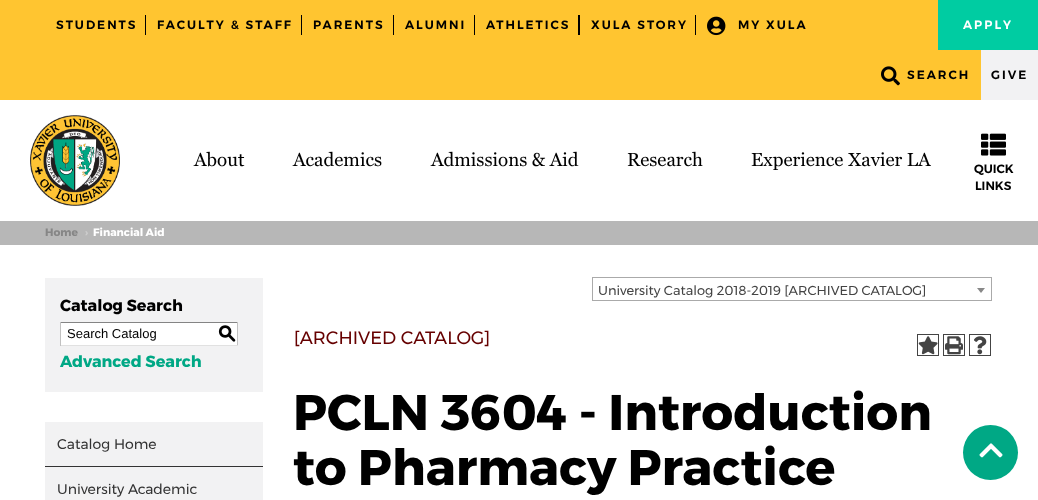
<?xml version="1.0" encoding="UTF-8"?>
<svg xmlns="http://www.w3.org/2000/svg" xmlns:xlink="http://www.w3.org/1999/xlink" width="1038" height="500">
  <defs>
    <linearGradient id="g1" gradientUnits="userSpaceOnUse" x1="814" y1="131" x2="1025" y2="-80"><stop offset="0" stop-color="#00a885" /><stop offset="0.25" stop-color="#00a885" /><stop offset="0.5" stop-color="#00cca2" /><stop offset="1" stop-color="#00cca2" /></linearGradient>
  </defs>
  <rect width="100%" height="100%" fill="#ffffff" />
  <rect width="981" height="100" fill="#ffc530" />
  <rect x="145" y="15" width="1" height="20" fill="#000000" />
  <rect x="301" y="15" width="1" height="20" fill="#000000" />
  <rect x="393" y="15" width="1" height="20" fill="#000000" />
  <rect x="474" y="15" width="1" height="20" fill="#000000" />
  <rect x="578" y="15" width="2" height="20" fill="#000000" />
  <rect x="695" y="15" width="1" height="20" fill="#000000" />
  <image x="707" y="16" width="19" height="20" xlink:href="image1.png" />
  <rect x="938" width="100" height="50" fill="url(#g1)" />
  <image x="881" y="66" width="19" height="20" xlink:href="image2.png" />
  <rect x="981" y="50" width="57" height="50" fill="#f2f2f3" />
  <image x="30" y="115" width="90" height="91" xlink:href="image3.png" />
  <image x="981" y="133" width="25" height="23" xlink:href="image4.png" />
  <rect y="221" width="1038" height="24" fill="#b7b7b7" />
  <rect x="592.5" y="277.5" width="399" height="23" fill="none" stroke="#aaaaaa" />
  <path d="M 977 288 h 8 l -4 5 z" fill="#888888" />
  <rect x="45" y="278" width="218" height="114" fill="#f2f2f3" />
  <rect x="61" y="323" width="176" height="22" fill="#ffffff" />
  <rect x="60" y="322" width="178" height="1" fill="#848484" />
  <rect x="237" y="322" width="1" height="24" fill="#c1c1c1" />
  <rect x="60" y="345" width="178" height="1" fill="#e1e1e1" />
  <rect x="60" y="322" width="1" height="24" fill="#c1c1c1" />
  <rect x="45" y="422" width="218" height="78" fill="#f2f2f3" />
  <rect x="45" y="466" width="218" height="1" fill="#333333" />
  <rect x="917.5" y="334.5" width="21" height="21" fill="none" stroke="#444444" />
  <image x="918" y="336" width="20" height="19" xlink:href="image5.png" />
  <rect x="943.5" y="334.5" width="21" height="21" fill="none" stroke="#444444" />
  <image x="945" y="336" width="18" height="19" xlink:href="image6.png" />
  <rect x="969.5" y="334.5" width="21" height="21" fill="none" stroke="#444444" />
  <image x="974" y="336" width="13" height="19" xlink:href="image7.png" />
  <circle cx="990.5" cy="452.5" r="27.5" fill="#00a885" />
  <image x="979" y="443" width="24" height="15" xlink:href="image8.png" />
  <text x="56" y="29" style="font-family: Montserrat; font-size: 12px; font-weight: 600; letter-spacing: 2px; fill: #000000">STUDENTS</text>
  <text x="157" y="29" style="font-family: Montserrat; font-size: 12px; font-weight: 600; letter-spacing: 2px; fill: #000000">FACULTY &amp; STAFF</text>
  <text x="313" y="29" style="font-family: Montserrat; font-size: 12px; font-weight: 600; letter-spacing: 2px; fill: #000000">PARENTS</text>
  <text x="405" y="29" style="font-family: Montserrat; font-size: 12px; font-weight: 600; letter-spacing: 2px; fill: #000000">ALUMNI</text>
  <text x="486" y="29" style="font-family: Montserrat; font-size: 12px; font-weight: 600; letter-spacing: 2px; fill: #000000">ATHLETICS</text>
  <text x="591" y="29" style="font-family: Montserrat; font-size: 12px; font-weight: 600; letter-spacing: 2px; fill: #000000">XULA STORY</text>
  <text x="738" y="29" style="font-family: Montserrat; font-size: 12px; font-weight: 600; letter-spacing: 2px; fill: #000000">MY XULA</text>
  <text x="963" y="29" style="font-family: Montserrat; font-size: 12px; font-weight: 600; letter-spacing: 2px; fill: #ffffff">APPLY</text>
  <text x="907" y="79" style="font-family: Montserrat; font-size: 12px; font-weight: 600; letter-spacing: 2px; fill: #000000">SEARCH</text>
  <text x="991" y="79" style="font-family: Montserrat; font-size: 12px; font-weight: 600; letter-spacing: 2px; fill: #000000">GIVE</text>
  <text x="194" y="166" style="font-family: Georgia; font-size: 18.75px; fill: #000000">About</text>
  <text x="293" y="166" style="font-family: Georgia; font-size: 18.75px; fill: #000000">Academics</text>
  <text x="431" y="166" style="font-family: Georgia; font-size: 18.75px; fill: #000000">Admissions &amp; Aid</text>
  <text x="627" y="166" style="font-family: Georgia; font-size: 18.75px; fill: #000000">Research</text>
  <text x="751" y="166" style="font-family: Georgia; font-size: 18.75px; fill: #000000">Experience Xavier LA</text>
  <text x="974" y="173" style="font-family: Montserrat; font-size: 12px; font-weight: 600; fill: #000000">QUICK</text>
  <text x="975" y="190" style="font-family: Montserrat; font-size: 12px; font-weight: 600; fill: #000000">LINKS</text>
  <text x="45" y="236" style="font-family: Montserrat; font-size: 10.75px; font-weight: bold; fill: #868686">Home</text>
  <text x="85" y="236" style="font-family: Montserrat; font-size: 10.75px; font-weight: bold; fill: #cccccc">›</text>
  <text x="93" y="236" style="font-family: Montserrat; font-size: 10.75px; font-weight: bold; fill: #ffffff">Financial Aid</text>
  <text x="598" y="295" style="font-family: Montserrat; font-size: 13px; fill: #444444">University Catalog 2018-2019 [ARCHIVED CATALOG]</text>
  <text x="60" y="311" style="font-family: Montserrat; font-size: 16px; font-weight: bold; fill: #000000">Catalog Search</text>
  <text x="67" y="338" style="font-family: Liberation Sans; font-size: 13px; fill: #000000">Search Catalog</text>
  <text x="218" y="339" style="font-family: 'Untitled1'; font-size: 18px; font-weight: 500; fill: #000000">S</text>
  <text x="60" y="367" style="font-family: Montserrat; font-size: 16px; font-weight: bold; fill: #00a885">Advanced Search</text>
  <text x="57" y="449" style="font-family: Montserrat; font-size: 14px; fill: #333333">Catalog Home</text>
  <text x="57" y="494" style="font-family: Montserrat; font-size: 14px; fill: #333333">University Academic</text>
  <text x="294" y="344" style="font-family: Montserrat; font-size: 18px; fill: #660000">[ARCHIVED CATALOG]</text>
  <text x="293" y="430" style="font-family: Montserrat; font-size: 50px; font-weight: bold; fill: #000000">PCLN 3604 - Introduction</text>
  <text x="293" y="485" style="font-family: Montserrat; font-size: 50px; font-weight: bold; fill: #000000">to Pharmacy Practice</text>
</svg>
